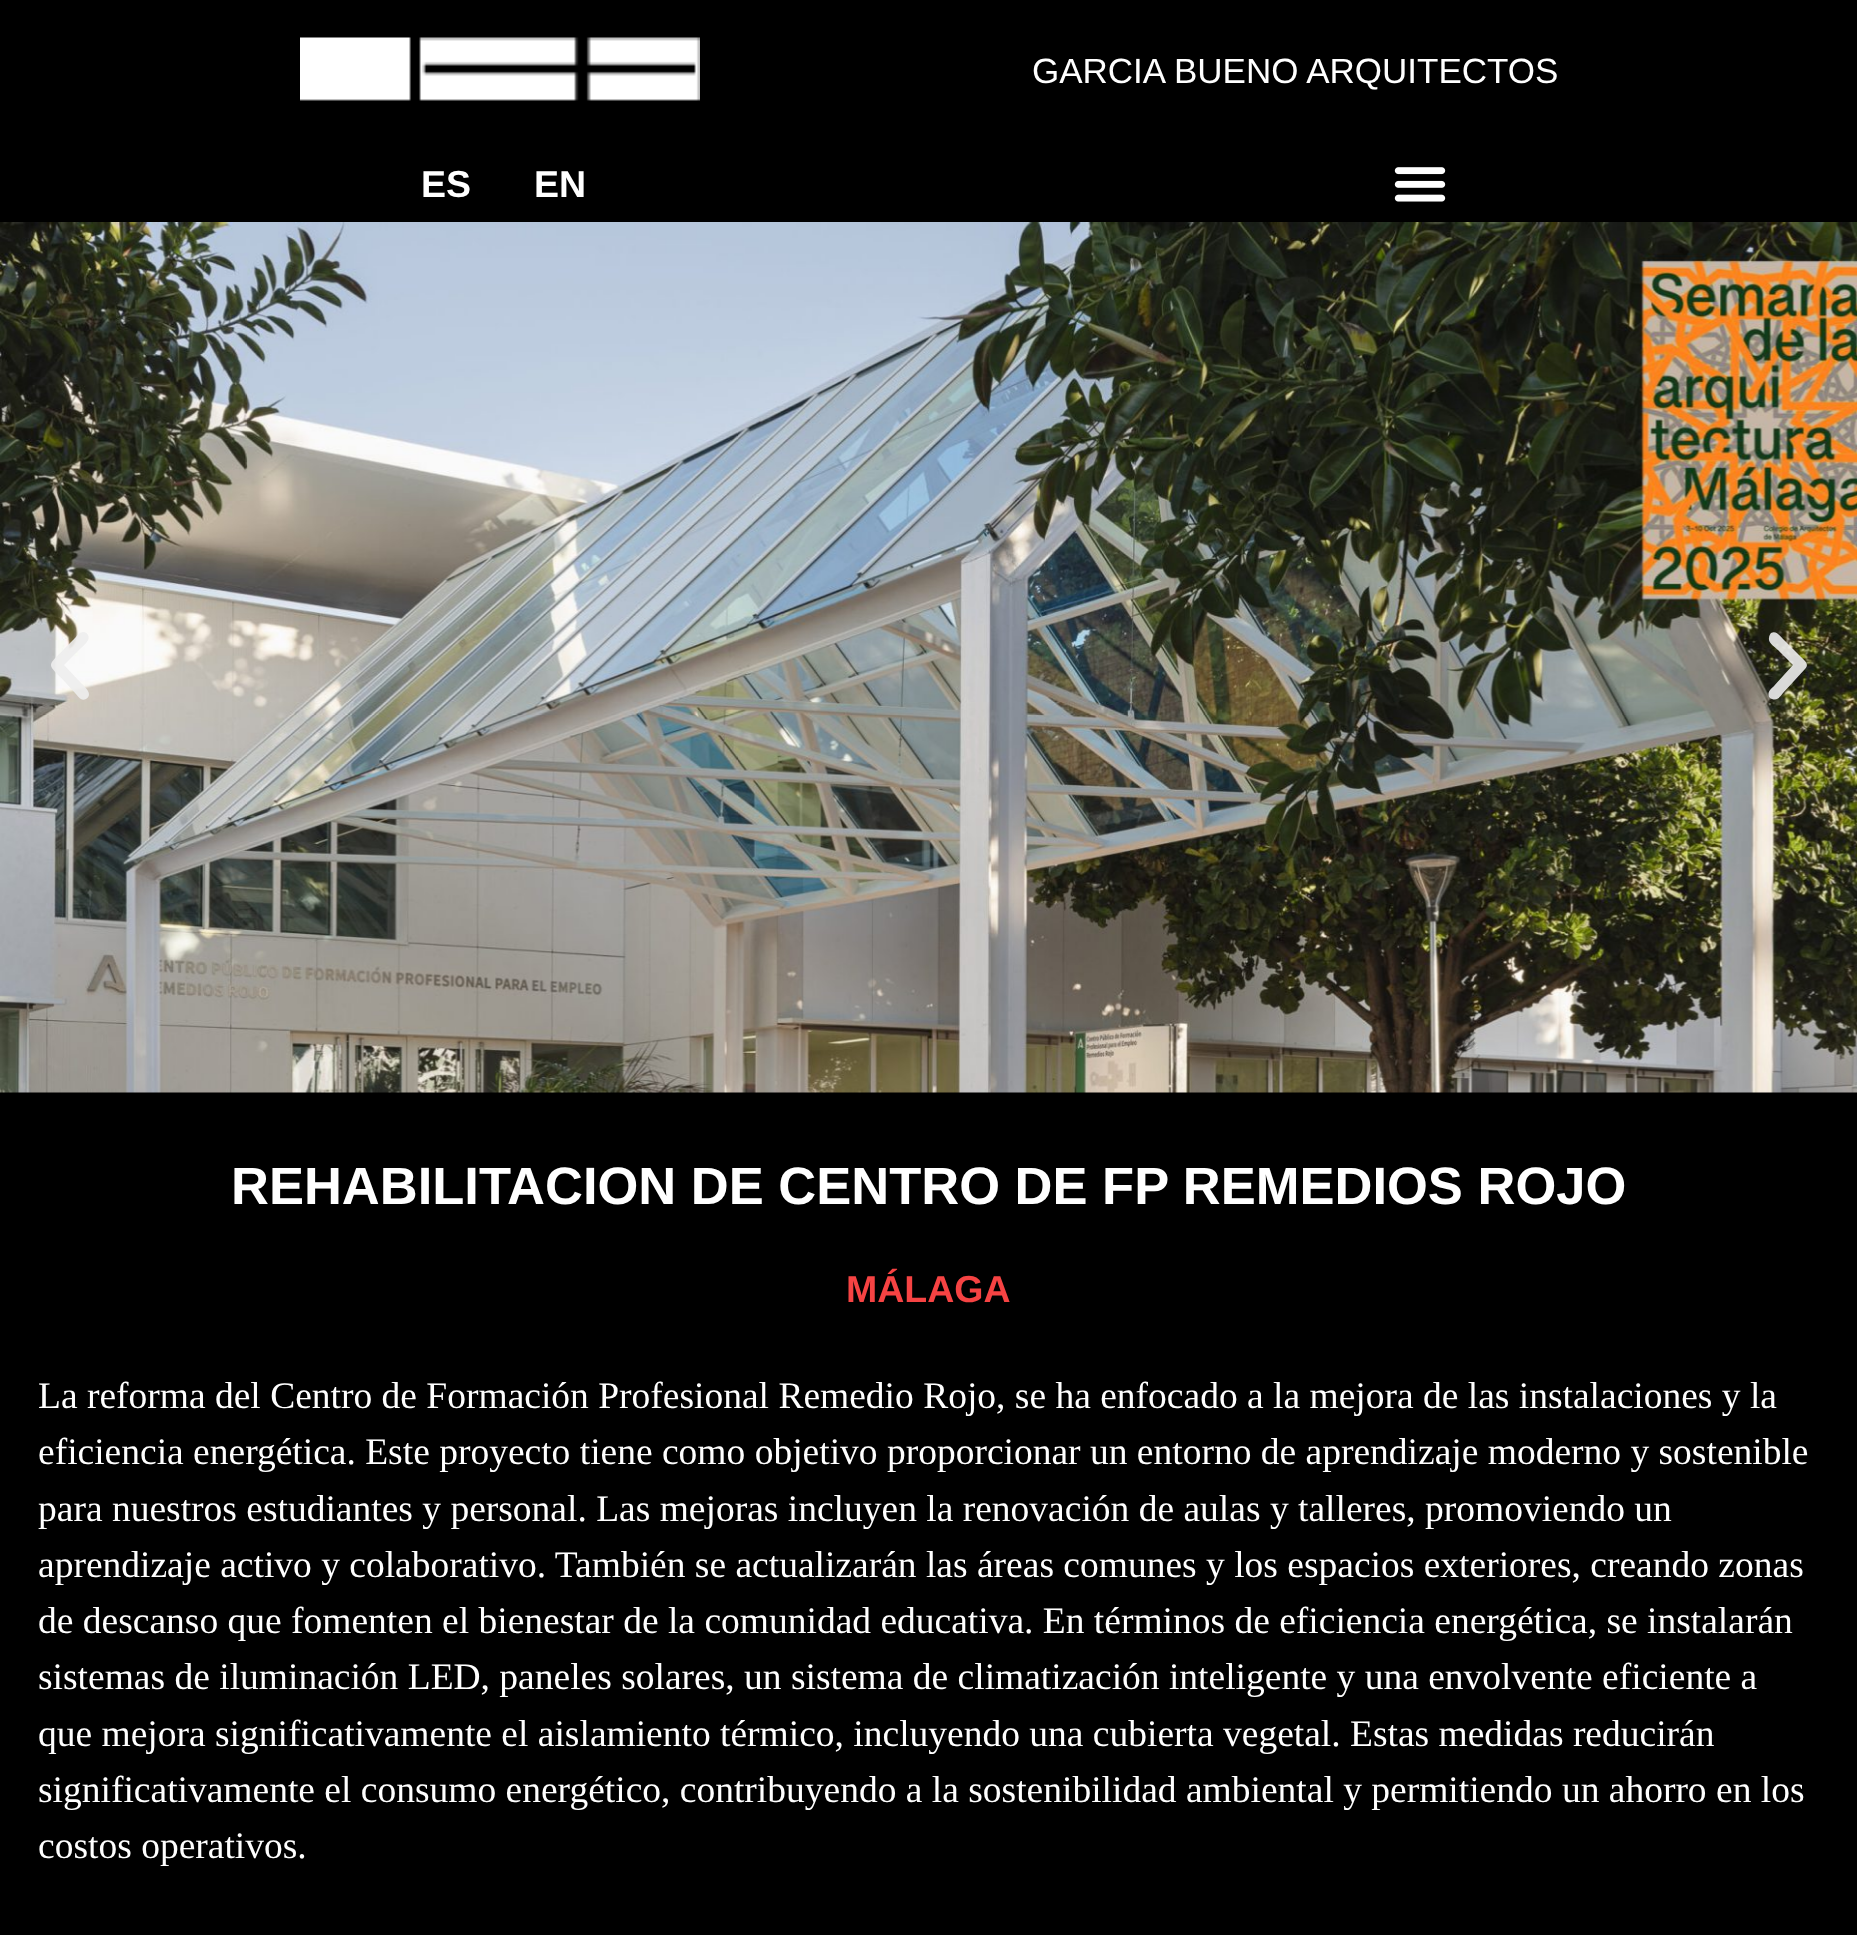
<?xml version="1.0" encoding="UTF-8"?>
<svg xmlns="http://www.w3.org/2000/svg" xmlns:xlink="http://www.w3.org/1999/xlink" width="1857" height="1935">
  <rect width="100%" height="100%" fill="#000000" />
  <image x="300" y="37" width="400" height="64" xlink:href="image1.png" />
  <image x="1394" y="167" width="52" height="35" xlink:href="image2.png" />
  <image x="0" y="222" width="1857" height="871" xlink:href="image3.png" />
  <path d="M 83 632 c -3 0 -6 4 -8 6 l -9 9 c -20 21 -20 15 0 36 l 9 10 c 3 3 6 9 11 6 c 2 -1 3 -3 3 -5 c 0 -4 -7 -10 -9 -12 l -16 -17 l 16 -16 c 3 -3 11 -9 8 -14 c -1 -2 -3 -3 -5 -3 z" fill="#ededed" fill-opacity="0.9" />
  <path d="M 1805 669 c 5 -5 -1 -9 -4 -12 l -18 -18 c -3 -3 -7 -9 -12 -6 c -1 1 -2 3 -2 5 c -1 5 6 9 9 12 l 15 15 l -19 21 c -3 3 -7 6 -5 11 c 1 1 2 2 3 2 c 5 2 8 -2 11 -6 z" fill="#ededed" fill-opacity="0.9" />
  <text x="1032" y="83" style="font-family: Liberation Sans; font-size: 35px; fill: #ffffff">GARCIA BUENO ARQUITECTOS</text>
  <text x="421" y="197" style="font-family: Liberation Sans; font-size: 37.5px; font-weight: bold; fill: #ffffff">ES</text>
  <text x="534" y="197" style="font-family: Liberation Sans; font-size: 37.5px; font-weight: bold; fill: #ffffff">EN</text>
  <text x="231" y="1204" style="font-family: Liberation Sans; font-size: 52.5px; font-weight: bold; fill: #ffffff">REHABILITACION DE CENTRO DE FP REMEDIOS ROJO</text>
  <text x="846" y="1302" style="font-family: Liberation Sans; font-size: 37.5px; font-weight: bold; fill: #f64343">MÁLAGA</text>
  <text x="38" y="1408" style="font-family: Liberation Serif; font-size: 37.5px; fill: #ffffff">La reforma del Centro de Formación Profesional Remedio Rojo, se ha enfocado a la mejora de las instalaciones y la</text>
  <text x="38" y="1464" style="font-family: Liberation Serif; font-size: 37.5px; fill: #ffffff">eficiencia energética. Este proyecto tiene como objetivo proporcionar un entorno de aprendizaje moderno y sostenible</text>
  <text x="38" y="1521" style="font-family: Liberation Serif; font-size: 37.5px; fill: #ffffff">para nuestros estudiantes y personal. Las mejoras incluyen la renovación de aulas y talleres, promoviendo un</text>
  <text x="38" y="1577" style="font-family: Liberation Serif; font-size: 37.5px; fill: #ffffff">aprendizaje activo y colaborativo. También se actualizarán las áreas comunes y los espacios exteriores, creando zonas</text>
  <text x="38" y="1633" style="font-family: Liberation Serif; font-size: 37.5px; fill: #ffffff">de descanso que fomenten el bienestar de la comunidad educativa. En términos de eficiencia energética, se instalarán</text>
  <text x="38" y="1689" style="font-family: Liberation Serif; font-size: 37.5px; fill: #ffffff">sistemas de iluminación LED, paneles solares, un sistema de climatización inteligente y una envolvente eficiente a</text>
  <text x="38" y="1746" style="font-family: Liberation Serif; font-size: 37.5px; fill: #ffffff">que mejora significativamente el aislamiento térmico, incluyendo una cubierta vegetal. Estas medidas reducirán</text>
  <text x="38" y="1802" style="font-family: Liberation Serif; font-size: 37.5px; fill: #ffffff">significativamente el consumo energético, contribuyendo a la sostenibilidad ambiental y permitiendo un ahorro en los</text>
  <text x="38" y="1858" style="font-family: Liberation Serif; font-size: 37.5px; fill: #ffffff">costos operativos.</text>
</svg>
